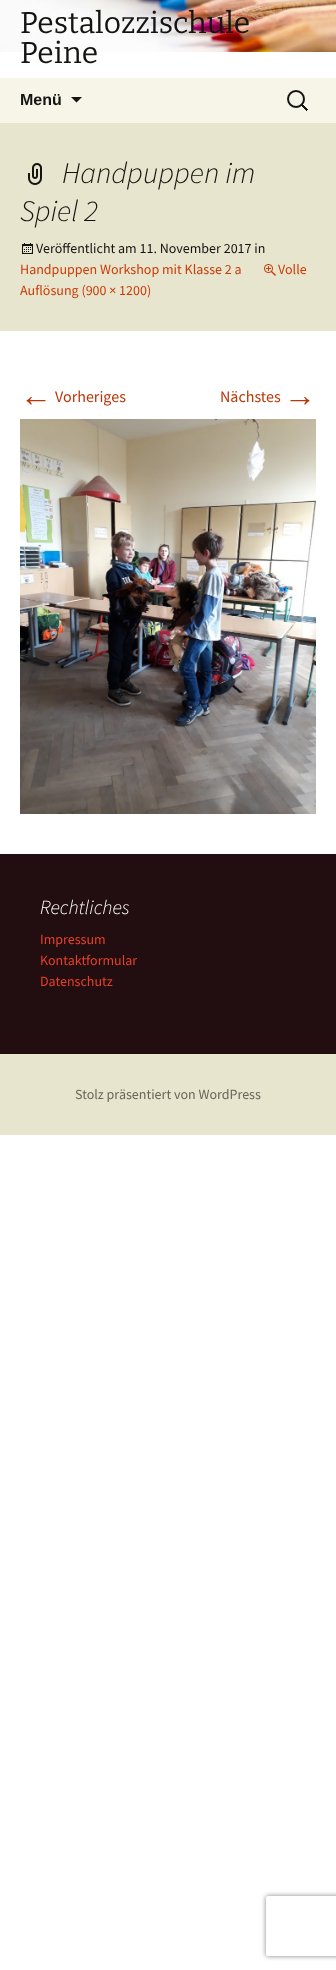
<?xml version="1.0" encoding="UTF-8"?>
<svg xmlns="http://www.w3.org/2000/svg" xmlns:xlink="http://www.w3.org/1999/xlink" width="336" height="1970">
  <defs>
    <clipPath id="clip1"><path d="M 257 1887 h 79 v 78 h -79 z m 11 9 h 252 c 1 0 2 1 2 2 v 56 c 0 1 -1 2 -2 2 h -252 c -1 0 -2 -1 -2 -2 v -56 c 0 -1 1 -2 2 -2 z" clip-rule="evenodd" /></clipPath>
  </defs>
  <rect width="100%" height="100%" fill="#ffffff" />
  <image x="0" y="0" width="336" height="52" xlink:href="image1.png" />
  <rect y="78" width="336" height="45" fill="#f7f5e7" />
  <path d="M 71 97 h 11 l -5.5 5.5 z" fill="#141412" />
  <image x="287" y="90" width="21" height="21" xlink:href="image2.png" />
  <rect y="123" width="336" height="208" fill="#e8e5ce" />
  <image x="28" y="163" width="14" height="22" xlink:href="image3.png" />
  <image x="22" y="243" width="11" height="11" xlink:href="image4.png" />
  <image x="264" y="264" width="12" height="12" xlink:href="image5.png" />
  <image x="20" y="419" width="296" height="395" xlink:href="image6.png" />
  <rect y="1054" width="336" height="81" fill="#e8e5ce" />
  <rect y="854" width="336" height="200" fill="#220e10" />
  <g clip-path="url(#clip1)">
    <rect x="266" y="1896" width="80" height="60" rx="2" fill="#808080" filter="blur(2.5px)" />
  </g>
  <text x="20" y="33" style="font-family: Bitter; font-size: 30px; fill: #141412">Pestalozzischule</text>
  <text x="20" y="63" style="font-family: Bitter; font-size: 30px; fill: #141412">Peine</text>
  <text x="20" y="105" style="font-family: Liberation Sans; font-size: 16px; font-weight: bold; fill: #141412">Menü</text>
  <text x="62" y="183" style="font-family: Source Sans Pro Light; font-size: 30px; font-weight: 300; font-style: italic; fill: #141412">Handpuppen im</text>
  <text x="20" y="221" style="font-family: Source Sans Pro Light; font-size: 30px; font-weight: 300; font-style: italic; fill: #141412">Spiel 2</text>
  <text x="36" y="253" style="font-family: Source Sans Pro; font-size: 14px; fill: #141412">Veröffentlicht am 11. November 2017 in</text>
  <text x="20" y="274" style="font-family: Source Sans Pro; font-size: 14px; fill: #ca3c08">Handpuppen Workshop mit Klasse 2 a</text>
  <text x="278" y="274" style="font-family: Source Sans Pro; font-size: 14px; fill: #ca3c08">Volle</text>
  <text x="20" y="295" style="font-family: Source Sans Pro; font-size: 14px; fill: #ca3c08">Auflösung (900 × 1200)</text>
  <text x="20" y="406" style="font-family: Liberation Sans; font-size: 32px; fill: #bc360a">←</text>
  <text x="55" y="402" style="font-family: Source Sans Pro; font-size: 16px; fill: #bc360a">Vorheriges</text>
  <text x="220" y="402" style="font-family: Source Sans Pro; font-size: 16px; fill: #bc360a">Nächstes</text>
  <text x="284" y="406" style="font-family: Liberation Sans; font-size: 32px; fill: #bc360a">→</text>
  <text x="40" y="914" style="font-family: Source Sans Pro Light; font-size: 20px; font-weight: 300; font-style: italic; fill: #ffffff">Rechtliches</text>
  <text x="40" y="944" style="font-family: Source Sans Pro; font-size: 14px; fill: #e6402a">Impressum</text>
  <text x="40" y="965" style="font-family: Source Sans Pro; font-size: 14px; fill: #e6402a">Kontaktformular</text>
  <text x="40" y="986" style="font-family: Source Sans Pro; font-size: 14px; fill: #e6402a">Datenschutz</text>
  <text x="75" y="1099" style="font-family: Source Sans Pro; font-size: 14px; fill: #686758">Stolz präsentiert von WordPress</text>
</svg>
